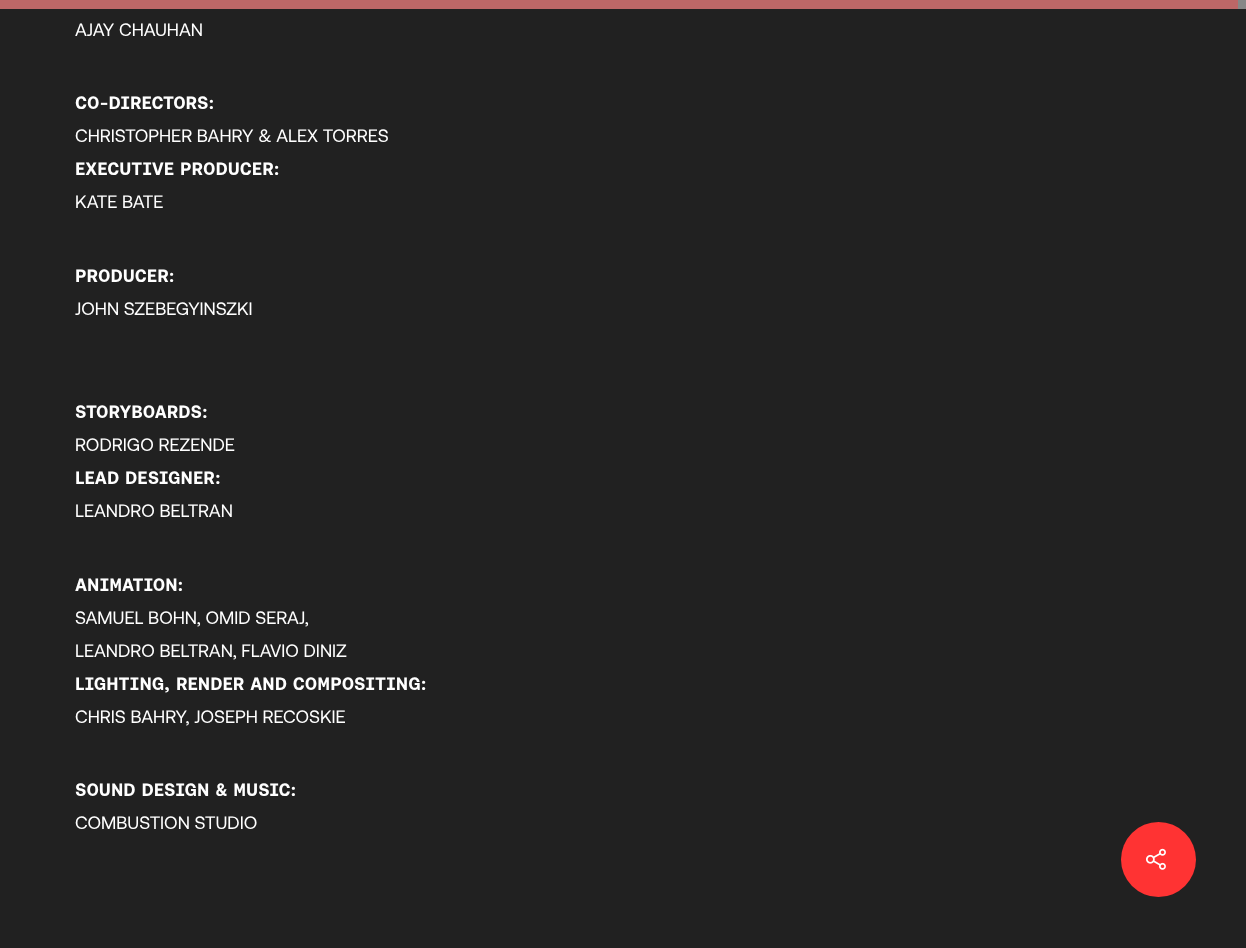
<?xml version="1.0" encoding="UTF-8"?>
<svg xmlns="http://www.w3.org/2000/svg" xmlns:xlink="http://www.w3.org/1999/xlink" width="1246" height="948">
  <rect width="100%" height="100%" fill="#212121" />
  <rect x="1238" width="8" height="9" fill="#878787" />
  <rect width="1238" height="9" fill="#bd6767" />
  <circle cx="1158.5" cy="859.5" r="37.5" fill="#ff3333" />
  <image x="1146" y="848" width="20" height="22" xlink:href="image1.png" />
  <text x="75" y="36" style="font-family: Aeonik; font-size: 18px; fill: #ffffff">AJAY CHAUHAN</text>
  <text x="75" y="109" style="font-family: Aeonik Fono; font-size: 18px; font-weight: bold; fill: #ffffff">CO-DIRECTORS:</text>
  <text x="75" y="142" style="font-family: Aeonik; font-size: 18px; fill: #ffffff">CHRISTOPHER BAHRY &amp; ALEX TORRES</text>
  <text x="75" y="175" style="font-family: Aeonik Fono; font-size: 18px; font-weight: bold; fill: #ffffff">EXECUTIVE PRODUCER:</text>
  <text x="75" y="208" style="font-family: Aeonik; font-size: 18px; fill: #ffffff">KATE BATE</text>
  <text x="75" y="282" style="font-family: Aeonik Fono; font-size: 18px; font-weight: bold; fill: #ffffff">PRODUCER:</text>
  <text x="75" y="315" style="font-family: Aeonik; font-size: 18px; fill: #ffffff">JOHN SZEBEGYINSZKI</text>
  <text x="75" y="418" style="font-family: Aeonik Fono; font-size: 18px; font-weight: bold; fill: #ffffff">STORYBOARDS:</text>
  <text x="75" y="451" style="font-family: Aeonik; font-size: 18px; fill: #ffffff">RODRIGO REZENDE</text>
  <text x="75" y="484" style="font-family: Aeonik Fono; font-size: 18px; font-weight: bold; fill: #ffffff">LEAD DESIGNER:</text>
  <text x="75" y="517" style="font-family: Aeonik; font-size: 18px; fill: #ffffff">LEANDRO BELTRAN</text>
  <text x="75" y="591" style="font-family: Aeonik Fono; font-size: 18px; font-weight: bold; fill: #ffffff">ANIMATION:</text>
  <text x="75" y="624" style="font-family: Aeonik; font-size: 18px; fill: #ffffff">SAMUEL BOHN, OMID SERAJ,</text>
  <text x="75" y="657" style="font-family: Aeonik; font-size: 18px; fill: #ffffff">LEANDRO BELTRAN, FLAVIO DINIZ</text>
  <text x="75" y="690" style="font-family: Aeonik Fono; font-size: 18px; font-weight: bold; fill: #ffffff">LIGHTING, RENDER AND COMPOSITING:</text>
  <text x="75" y="723" style="font-family: Aeonik; font-size: 18px; fill: #ffffff">CHRIS BAHRY, JOSEPH RECOSKIE</text>
  <text x="75" y="796" style="font-family: Aeonik Fono; font-size: 18px; font-weight: bold; fill: #ffffff">SOUND DESIGN &amp; MUSIC:</text>
  <text x="75" y="829" style="font-family: Aeonik; font-size: 18px; fill: #ffffff">COMBUSTION STUDIO</text>
</svg>
